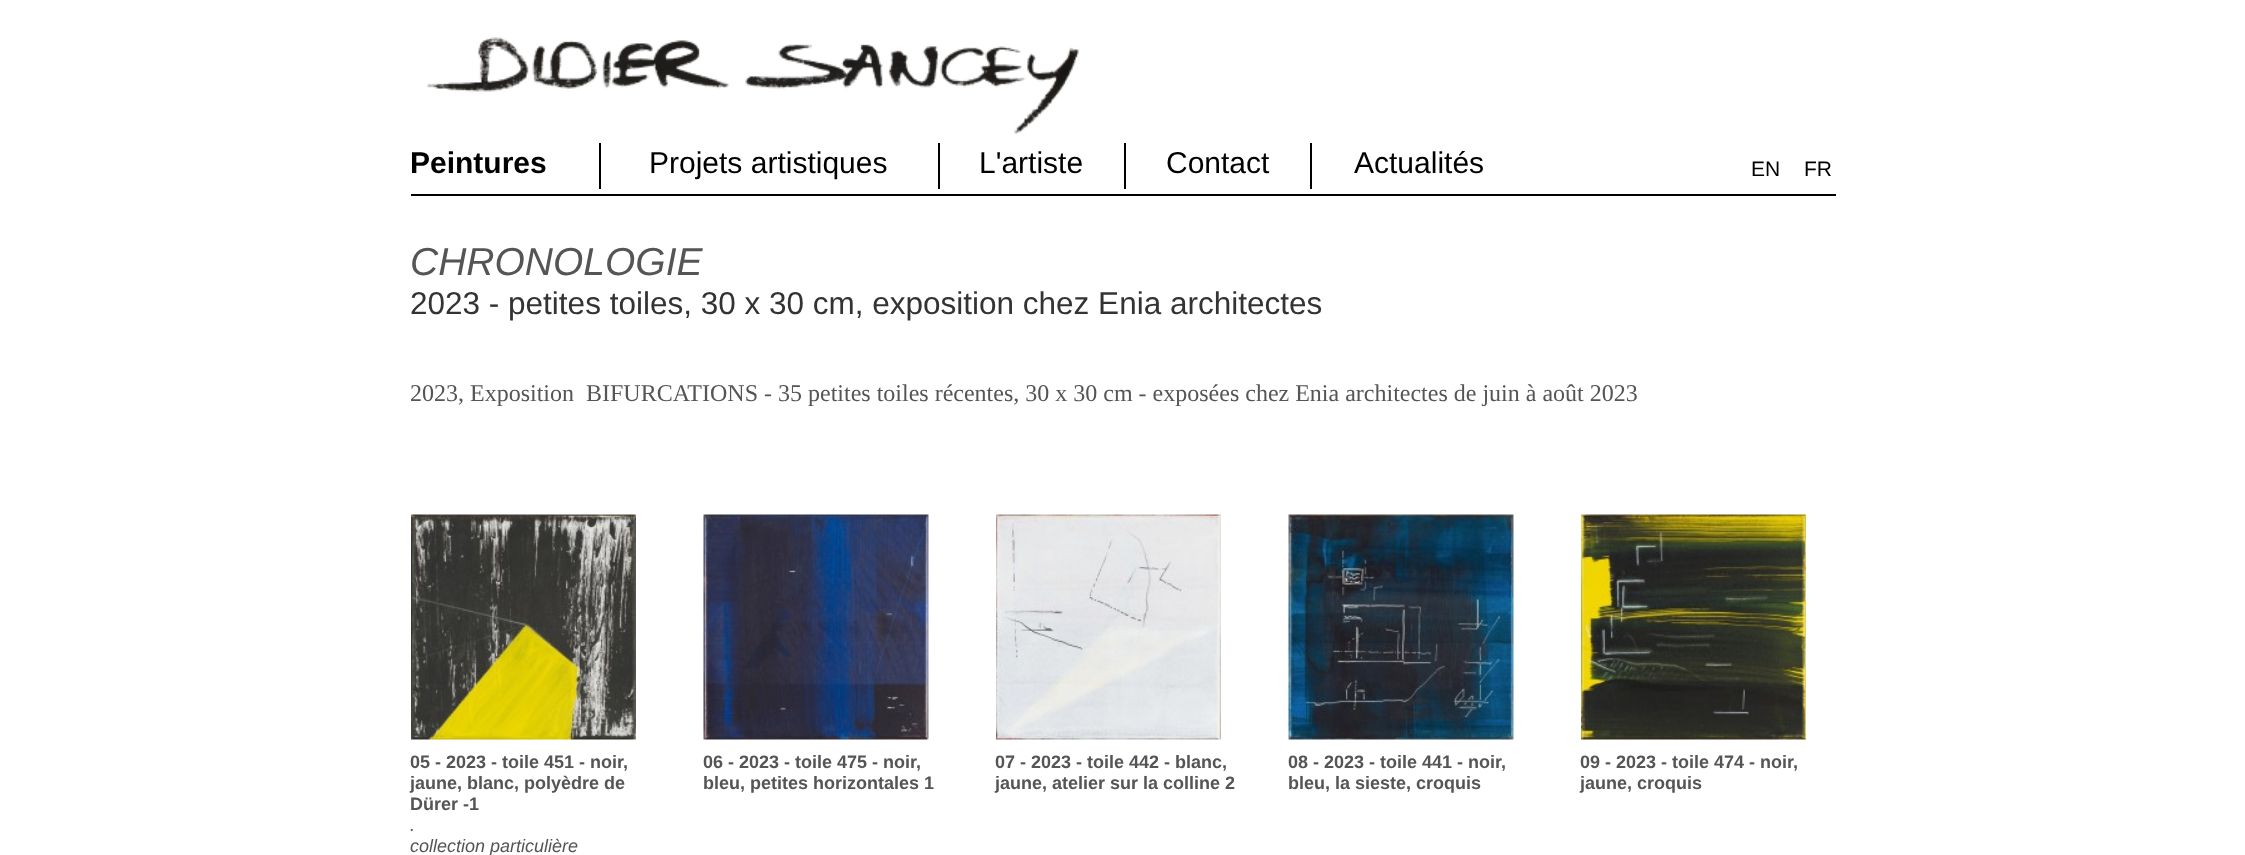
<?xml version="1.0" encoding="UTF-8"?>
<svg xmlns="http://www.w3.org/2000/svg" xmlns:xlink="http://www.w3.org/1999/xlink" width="2245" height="855">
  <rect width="100%" height="100%" fill="#ffffff" />
  <image x="427" y="37" width="653" height="97" xlink:href="image1.png" />
  <rect x="411" y="194" width="1425" height="2" fill="#000000" />
  <rect x="599" y="143" width="2" height="46" fill="#000000" />
  <rect x="938" y="143" width="2" height="46" fill="#000000" />
  <rect x="1124" y="143" width="2" height="46" fill="#000000" />
  <rect x="1310" y="143" width="2" height="46" fill="#000000" />
  <image x="411" y="514" width="225" height="226" xlink:href="image2.png" />
  <image x="703" y="514" width="226" height="226" xlink:href="image3.png" />
  <image x="996" y="514" width="225" height="226" xlink:href="image4.png" />
  <image x="1288" y="514" width="226" height="226" xlink:href="image5.png" />
  <image x="1581" y="514" width="225" height="226" xlink:href="image6.png" />
  <text x="410" y="173" style="font-family: Liberation Sans; font-size: 30px; font-weight: bold; fill: #000000">Peintures</text>
  <text x="649" y="173" style="font-family: Liberation Sans; font-size: 30px; fill: #000000">Projets artistiques</text>
  <text x="979" y="173" style="font-family: Liberation Sans; font-size: 30px; fill: #000000">L'artiste</text>
  <text x="1166" y="173" style="font-family: Liberation Sans; font-size: 30px; fill: #000000">Contact</text>
  <text x="1354" y="173" style="font-family: Liberation Sans; font-size: 30px; fill: #000000">Actualités</text>
  <text x="1751" y="176" style="font-family: Liberation Sans; font-size: 21px; fill: #000000">EN</text>
  <text x="1804" y="176" style="font-family: Liberation Sans; font-size: 21px; fill: #000000">FR</text>
  <text x="410" y="275" style="font-family: Liberation Sans; font-size: 39px; font-style: italic; fill: #555555">CHRONOLOGIE</text>
  <text x="410" y="314" style="font-family: Liberation Sans; font-size: 31.5px; fill: #333333">2023 - petites toiles, 30 x 30 cm, exposition chez Enia architectes</text>
  <text x="410" y="401" style="font-family: Liberation Serif; font-size: 24px; fill: #555555" xml:space="preserve">2023, Exposition  BIFURCATIONS - 35 petites toiles récentes, 30 x 30 cm - exposées chez Enia architectes de juin à août 2023</text>
  <text x="410" y="768" style="font-family: Liberation Sans; font-size: 18px; font-weight: bold; fill: #555555">05 - 2023 - toile 451 - noir,</text>
  <text x="410" y="789" style="font-family: Liberation Sans; font-size: 18px; font-weight: bold; fill: #555555">jaune, blanc, polyèdre de</text>
  <text x="410" y="810" style="font-family: Liberation Sans; font-size: 18px; font-weight: bold; fill: #555555">Dürer -1</text>
  <text x="410" y="831" style="font-family: Liberation Sans; font-size: 18px; font-style: italic; fill: #555555">.</text>
  <text x="410" y="852" style="font-family: Liberation Sans; font-size: 18px; font-style: italic; fill: #555555">collection particulière</text>
  <text x="703" y="768" style="font-family: Liberation Sans; font-size: 18px; font-weight: bold; fill: #555555">06 - 2023 - toile 475 - noir,</text>
  <text x="703" y="789" style="font-family: Liberation Sans; font-size: 18px; font-weight: bold; fill: #555555">bleu, petites horizontales 1</text>
  <text x="995" y="768" style="font-family: Liberation Sans; font-size: 18px; font-weight: bold; fill: #555555">07 - 2023 - toile 442 - blanc,</text>
  <text x="995" y="789" style="font-family: Liberation Sans; font-size: 18px; font-weight: bold; fill: #555555">jaune, atelier sur la colline 2</text>
  <text x="1288" y="768" style="font-family: Liberation Sans; font-size: 18px; font-weight: bold; fill: #555555">08 - 2023 - toile 441 - noir,</text>
  <text x="1288" y="789" style="font-family: Liberation Sans; font-size: 18px; font-weight: bold; fill: #555555">bleu, la sieste, croquis</text>
  <text x="1580" y="768" style="font-family: Liberation Sans; font-size: 18px; font-weight: bold; fill: #555555">09 - 2023 - toile 474 - noir,</text>
  <text x="1580" y="789" style="font-family: Liberation Sans; font-size: 18px; font-weight: bold; fill: #555555">jaune, croquis</text>
</svg>
